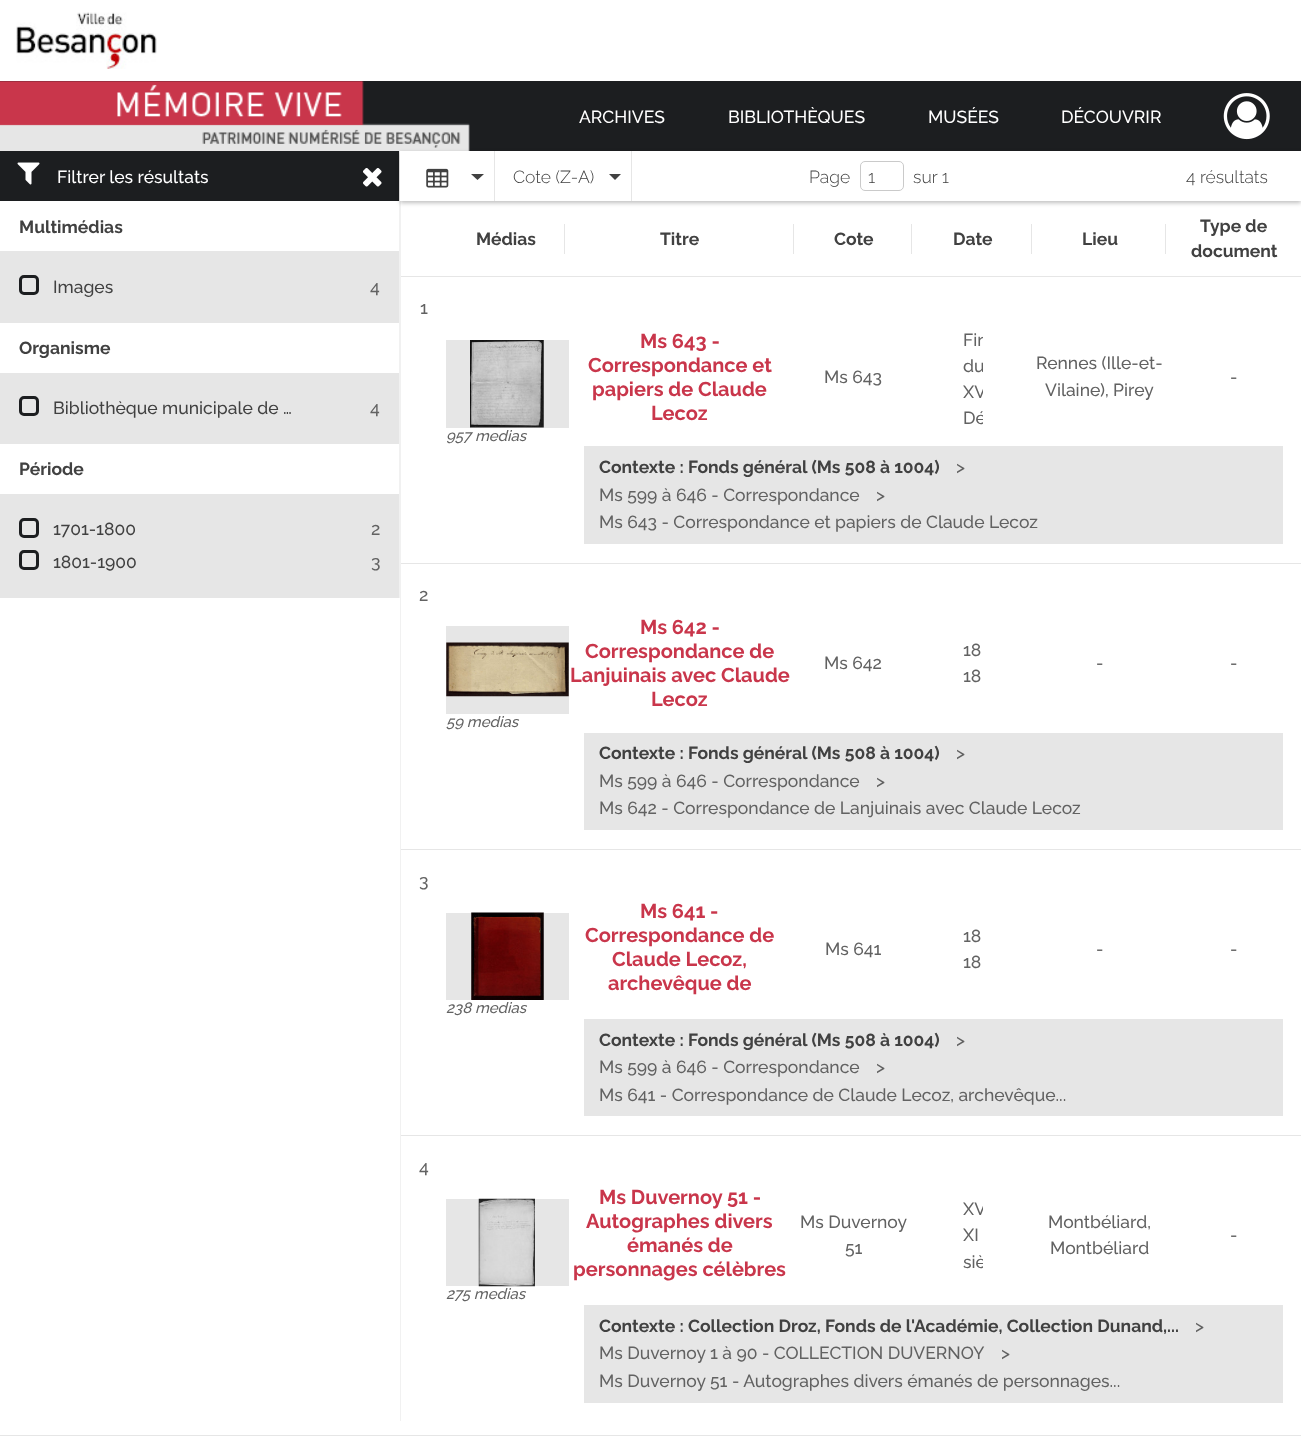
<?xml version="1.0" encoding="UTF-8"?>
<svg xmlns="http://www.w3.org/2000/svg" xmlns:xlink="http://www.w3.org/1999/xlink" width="1301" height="1446">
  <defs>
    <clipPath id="clip1"><rect x="963" y="328" width="20" height="100" /></clipPath>
    <clipPath id="clip2"><rect x="963" y="1196" width="20" height="79" /></clipPath>
  </defs>
  <rect width="100%" height="100%" fill="#ffffff" />
  <image x="16" y="12" width="141" height="57" xlink:href="image1.png" />
  <rect y="81" width="1301" height="70" fill="#1c1e20" />
  <image x="0" y="81" width="470" height="70" xlink:href="image2.png" />
  <image x="1223" y="93" width="47" height="47" xlink:href="image3.png" />
  <rect y="251" width="399" height="347" fill="#e6e6e6" />
  <rect x="399" y="151" width="1" height="447" fill="#f1f1f1" />
  <rect y="151" width="399" height="50" fill="#1c1e20" />
  <image x="17" y="162" width="23" height="23" xlink:href="image4.png" />
  <image x="363" y="168" width="19" height="19" xlink:href="image5.png" />
  <rect x="20.5" y="276.5" width="17" height="17" rx="3.5" fill="none" stroke="#1c1e20" stroke-width="3" />
  <rect y="323" width="399" height="50" fill="#ffffff" />
  <rect x="20.5" y="397.5" width="17" height="17" rx="3.5" fill="none" stroke="#1c1e20" stroke-width="3" />
  <rect y="444" width="399" height="50" fill="#ffffff" />
  <rect x="20.5" y="519.5" width="17" height="17" rx="3.5" fill="none" stroke="#1c1e20" stroke-width="3" />
  <rect x="20.5" y="551.5" width="17" height="17" rx="3.5" fill="none" stroke="#1c1e20" stroke-width="3" />
  <rect x="400" y="201" width="1" height="1220" fill="#f1f1f1" />
  <rect x="400" y="153" width="901" height="50" fill="#000000" fill-opacity="0.25" filter="blur(2px)" />
  <rect x="400" y="151" width="901" height="50" fill="#ffffff" />
  <rect x="494" y="151" width="1" height="50" fill="#e6e6e6" />
  <image x="426" y="168" width="23" height="20" xlink:href="image6.png" />
  <path d="M 471 174 h 13 l -6.5 6 z" fill="#414141" />
  <rect x="631" y="151" width="1" height="50" fill="#e6e6e6" />
  <path d="M 609 174 h 12 l -6 6 z" fill="#414141" />
  <rect x="860.5" y="161.5" width="43" height="29" rx="4.5" fill="none" stroke="#cacaca" />
  <rect x="564" y="224" width="1" height="30" fill="#e6e6e6" />
  <rect x="793" y="224" width="1" height="30" fill="#e6e6e6" />
  <rect x="911" y="224" width="1" height="30" fill="#e6e6e6" />
  <rect x="1031" y="224" width="1" height="30" fill="#e6e6e6" />
  <rect x="1165" y="224" width="1" height="30" fill="#e6e6e6" />
  <rect x="401" y="276" width="900" height="1" fill="#e6e6e6" />
  <rect x="446" y="340" width="123" height="88" fill="#e6e6e6" />
  <image x="470" y="340" width="74" height="88" xlink:href="image7.png" />
  <rect x="401" y="563" width="900" height="1" fill="#e6e6e6" />
  <rect x="584" y="446" width="699" height="98" fill="#e6e6e6" />
  <rect x="446" y="626" width="123" height="88" fill="#e6e6e6" />
  <image x="446" y="642" width="123" height="55" xlink:href="image8.png" />
  <rect x="401" y="849" width="900" height="1" fill="#e6e6e6" />
  <rect x="584" y="733" width="699" height="97" fill="#e6e6e6" />
  <rect x="446" y="913" width="123" height="87" fill="#e6e6e6" />
  <image x="471" y="912" width="73" height="88" xlink:href="image9.png" />
  <rect x="401" y="1135" width="900" height="1" fill="#e6e6e6" />
  <rect x="584" y="1019" width="699" height="97" fill="#e6e6e6" />
  <rect x="446" y="1199" width="123" height="87" fill="#e6e6e6" />
  <image x="478" y="1198" width="57" height="89" xlink:href="image10.png" />
  <rect x="584" y="1305" width="699" height="98" fill="#e6e6e6" />
  <rect y="1435" width="1301" height="1" fill="#e6e6e6" />
  <text x="579" y="123" style="font-family: Raleway; font-size: 17.5px; font-weight: 500; fill: #ffffff">ARCHIVES</text>
  <text x="728" y="123" style="font-family: Raleway; font-size: 17.5px; font-weight: 500; fill: #ffffff">BIBLIOTHÈQUES</text>
  <text x="928" y="123" style="font-family: Raleway; font-size: 17.5px; font-weight: 500; fill: #ffffff">MUSÉES</text>
  <text x="1061" y="123" style="font-family: Raleway; font-size: 17.5px; font-weight: 500; fill: #ffffff">DÉCOUVRIR</text>
  <text x="57" y="183" style="font-family: Raleway; font-size: 17.5px; font-weight: 500; fill: #ffffff">Filtrer les résultats</text>
  <text x="19" y="233" style="font-family: Raleway; font-size: 17.5px; font-weight: bold; fill: #414141">Multimédias</text>
  <text x="53" y="293" style="font-family: Raleway; font-size: 17.5px; font-weight: 500; fill: #414141">Images</text>
  <text x="370" y="293" style="font-family: Raleway; font-size: 17.5px; font-weight: 500; fill: #626262">4</text>
  <text x="19" y="354" style="font-family: Raleway; font-size: 17.5px; font-weight: bold; fill: #414141">Organisme</text>
  <text x="53" y="414" style="font-family: Raleway; font-size: 17.5px; font-weight: 500; fill: #414141">Bibliothèque municipale de …</text>
  <text x="370" y="414" style="font-family: Raleway; font-size: 17.5px; font-weight: 500; fill: #626262">4</text>
  <text x="19" y="475" style="font-family: Raleway; font-size: 17.5px; font-weight: bold; fill: #414141">Période</text>
  <text x="53" y="535" style="font-family: Raleway; font-size: 17.5px; font-weight: 500; fill: #414141">1701-1800</text>
  <text x="371" y="535" style="font-family: Raleway; font-size: 17.5px; font-weight: 500; fill: #626262">2</text>
  <text x="53" y="568" style="font-family: Raleway; font-size: 17.5px; font-weight: 500; fill: #414141">1801-1900</text>
  <text x="371" y="568" style="font-family: Raleway; font-size: 17.5px; font-weight: 500; fill: #626262">3</text>
  <text x="513" y="183" style="font-family: Raleway; font-size: 17.5px; font-weight: 300; fill: #414141">Cote (Z-A)</text>
  <text x="809" y="183" style="font-family: Raleway; font-size: 17.5px; font-weight: 300; fill: #414141">Page</text>
  <text x="868" y="183" style="font-family: Raleway; font-size: 17.5px; font-weight: 300; fill: #414141">1</text>
  <text x="913" y="183" style="font-family: Raleway; font-size: 17.5px; font-weight: 300; fill: #414141">sur 1</text>
  <text x="1186" y="183" style="font-family: Raleway; font-size: 17.5px; font-weight: 300; fill: #414141">4 résultats</text>
  <text x="476" y="245" style="font-family: Raleway; font-size: 17.5px; font-weight: bold; fill: #414141">Médias</text>
  <text x="660" y="245" style="font-family: Raleway; font-size: 17.5px; font-weight: bold; fill: #414141">Titre</text>
  <text x="834" y="245" style="font-family: Raleway; font-size: 17.5px; font-weight: bold; fill: #414141">Cote</text>
  <text x="953" y="245" style="font-family: Raleway; font-size: 17.5px; font-weight: bold; fill: #414141">Date</text>
  <text x="1082" y="245" style="font-family: Raleway; font-size: 17.5px; font-weight: bold; fill: #414141">Lieu</text>
  <text x="1200" y="232" style="font-family: Raleway; font-size: 17.5px; font-weight: bold; fill: #414141">Type de</text>
  <text x="1191" y="257" style="font-family: Raleway; font-size: 17.5px; font-weight: bold; fill: #414141">document</text>
  <text x="420" y="314" style="font-family: Raleway; font-size: 17.5px; font-weight: 500; fill: #626262">1</text>
  <text x="640" y="348" style="font-family: Raleway; font-size: 20px; font-weight: bold; fill: #c9364b">Ms 643 -</text>
  <text x="588" y="372" style="font-family: Raleway; font-size: 20px; font-weight: bold; fill: #c9364b">Correspondance et</text>
  <text x="592" y="396" style="font-family: Raleway; font-size: 20px; font-weight: bold; fill: #c9364b">papiers de Claude</text>
  <text x="651" y="420" style="font-family: Raleway; font-size: 20px; font-weight: bold; fill: #c9364b">Lecoz</text>
  <text x="824" y="383" style="font-family: Raleway; font-size: 17.5px; font-weight: 500; fill: #626262">Ms 643</text>
  <g clip-path="url(#clip1)">
    <text x="963" y="346" style="font-family: Raleway; font-size: 17.5px; font-weight: 500; fill: #626262">Fin</text>
    <text x="963" y="372" style="font-family: Raleway; font-size: 17.5px; font-weight: 500; fill: #626262">du</text>
    <text x="963" y="398" style="font-family: Raleway; font-size: 17.5px; font-weight: 500; fill: #626262">XV</text>
    <text x="963" y="424" style="font-family: Raleway; font-size: 17.5px; font-weight: 500; fill: #626262">Dé</text>
  </g>
  <text x="1036" y="369" style="font-family: Raleway; font-size: 17.5px; font-weight: 500; fill: #626262">Rennes (Ille-et-</text>
  <text x="1045" y="396" style="font-family: Raleway; font-size: 17.5px; font-weight: 500; fill: #626262">Vilaine), Pirey</text>
  <text x="1230" y="383" style="font-family: Raleway; font-size: 17.5px; font-weight: 500; fill: #626262">-</text>
  <text x="446" y="441" style="font-family: Raleway; font-size: 15px; font-weight: 500; font-style: italic; fill: #626262">957 medias</text>
  <text x="599" y="473" style="font-family: Raleway; font-size: 17.5px; font-weight: bold; fill: #414141">Contexte : Fonds général (Ms 508 à 1004)</text>
  <text x="956" y="473" style="font-family: Raleway; font-size: 17.5px; font-weight: 500; fill: #626262">&gt;</text>
  <text x="599" y="501" style="font-family: Raleway; font-size: 17.5px; font-weight: 500; fill: #626262">Ms 599 à 646 - Correspondance</text>
  <text x="876" y="501" style="font-family: Raleway; font-size: 17.5px; font-weight: 500; fill: #626262">&gt;</text>
  <text x="599" y="528" style="font-family: Raleway; font-size: 17.5px; font-weight: 500; fill: #626262">Ms 643 - Correspondance et papiers de Claude Lecoz</text>
  <text x="419" y="601" style="font-family: Raleway; font-size: 17.5px; font-weight: 500; fill: #626262">2</text>
  <text x="640" y="634" style="font-family: Raleway; font-size: 20px; font-weight: bold; fill: #c9364b">Ms 642 -</text>
  <text x="585" y="658" style="font-family: Raleway; font-size: 20px; font-weight: bold; fill: #c9364b">Correspondance de</text>
  <text x="570" y="682" style="font-family: Raleway; font-size: 20px; font-weight: bold; fill: #c9364b">Lanjuinais avec Claude</text>
  <text x="651" y="706" style="font-family: Raleway; font-size: 20px; font-weight: bold; fill: #c9364b">Lecoz</text>
  <text x="824" y="669" style="font-family: Raleway; font-size: 17.5px; font-weight: 500; fill: #626262">Ms 642</text>
  <text x="963" y="656" style="font-family: Raleway; font-size: 17.5px; font-weight: 500; fill: #626262">18</text>
  <text x="963" y="682" style="font-family: Raleway; font-size: 17.5px; font-weight: 500; fill: #626262">18</text>
  <text x="1096" y="669" style="font-family: Raleway; font-size: 17.5px; font-weight: 500; fill: #626262">-</text>
  <text x="1230" y="669" style="font-family: Raleway; font-size: 17.5px; font-weight: 500; fill: #626262">-</text>
  <text x="446" y="727" style="font-family: Raleway; font-size: 15px; font-weight: 500; font-style: italic; fill: #626262">59 medias</text>
  <text x="599" y="759" style="font-family: Raleway; font-size: 17.5px; font-weight: bold; fill: #414141">Contexte : Fonds général (Ms 508 à 1004)</text>
  <text x="956" y="759" style="font-family: Raleway; font-size: 17.5px; font-weight: 500; fill: #626262">&gt;</text>
  <text x="599" y="787" style="font-family: Raleway; font-size: 17.5px; font-weight: 500; fill: #626262">Ms 599 à 646 - Correspondance</text>
  <text x="876" y="787" style="font-family: Raleway; font-size: 17.5px; font-weight: 500; fill: #626262">&gt;</text>
  <text x="599" y="814" style="font-family: Raleway; font-size: 17.5px; font-weight: 500; fill: #626262">Ms 642 - Correspondance de Lanjuinais avec Claude Lecoz</text>
  <text x="419" y="887" style="font-family: Raleway; font-size: 17.5px; font-weight: 500; fill: #626262">3</text>
  <text x="640" y="918" style="font-family: Raleway; font-size: 20px; font-weight: bold; fill: #c9364b">Ms 641 -</text>
  <text x="585" y="942" style="font-family: Raleway; font-size: 20px; font-weight: bold; fill: #c9364b">Correspondance de</text>
  <text x="612" y="966" style="font-family: Raleway; font-size: 20px; font-weight: bold; fill: #c9364b">Claude Lecoz,</text>
  <text x="608" y="990" style="font-family: Raleway; font-size: 20px; font-weight: bold; fill: #c9364b">archevêque de</text>
  <text x="825" y="955" style="font-family: Raleway; font-size: 17.5px; font-weight: 500; fill: #626262">Ms 641</text>
  <text x="963" y="942" style="font-family: Raleway; font-size: 17.5px; font-weight: 500; fill: #626262">18</text>
  <text x="963" y="968" style="font-family: Raleway; font-size: 17.5px; font-weight: 500; fill: #626262">18</text>
  <text x="1096" y="955" style="font-family: Raleway; font-size: 17.5px; font-weight: 500; fill: #626262">-</text>
  <text x="1230" y="955" style="font-family: Raleway; font-size: 17.5px; font-weight: 500; fill: #626262">-</text>
  <text x="446" y="1013" style="font-family: Raleway; font-size: 15px; font-weight: 500; font-style: italic; fill: #626262">238 medias</text>
  <text x="599" y="1046" style="font-family: Raleway; font-size: 17.5px; font-weight: bold; fill: #414141">Contexte : Fonds général (Ms 508 à 1004)</text>
  <text x="956" y="1046" style="font-family: Raleway; font-size: 17.5px; font-weight: 500; fill: #626262">&gt;</text>
  <text x="599" y="1073" style="font-family: Raleway; font-size: 17.5px; font-weight: 500; fill: #626262">Ms 599 à 646 - Correspondance</text>
  <text x="876" y="1073" style="font-family: Raleway; font-size: 17.5px; font-weight: 500; fill: #626262">&gt;</text>
  <text x="599" y="1101" style="font-family: Raleway; font-size: 17.5px; font-weight: 500; fill: #626262">Ms 641 - Correspondance de Claude Lecoz, archevêque...</text>
  <text x="419" y="1173" style="font-family: Raleway; font-size: 17.5px; font-weight: 500; fill: #626262">4</text>
  <text x="599" y="1204" style="font-family: Raleway; font-size: 20px; font-weight: bold; fill: #c9364b">Ms Duvernoy 51 -</text>
  <text x="586" y="1228" style="font-family: Raleway; font-size: 20px; font-weight: bold; fill: #c9364b">Autographes divers</text>
  <text x="627" y="1252" style="font-family: Raleway; font-size: 20px; font-weight: bold; fill: #c9364b">émanés de</text>
  <text x="573" y="1276" style="font-family: Raleway; font-size: 20px; font-weight: bold; fill: #c9364b">personnages célèbres</text>
  <text x="800" y="1228" style="font-family: Raleway; font-size: 17.5px; font-weight: 500; fill: #626262">Ms Duvernoy</text>
  <text x="845" y="1254" style="font-family: Raleway; font-size: 17.5px; font-weight: 500; fill: #626262">51</text>
  <g clip-path="url(#clip2)">
    <text x="963" y="1215" style="font-family: Raleway; font-size: 17.5px; font-weight: 500; fill: #626262">XV</text>
  </g>
  <text x="963" y="1241" style="font-family: Raleway; font-size: 17.5px; font-weight: 500; fill: #626262">XI</text>
  <g clip-path="url(#clip2)">
    <text x="963" y="1268" style="font-family: Raleway; font-size: 17.5px; font-weight: 500; fill: #626262">siè</text>
  </g>
  <text x="1048" y="1228" style="font-family: Raleway; font-size: 17.5px; font-weight: 500; fill: #626262">Montbéliard,</text>
  <text x="1050" y="1254" style="font-family: Raleway; font-size: 17.5px; font-weight: 500; fill: #626262">Montbéliard</text>
  <text x="1230" y="1241" style="font-family: Raleway; font-size: 17.5px; font-weight: 500; fill: #626262">-</text>
  <text x="446" y="1299" style="font-family: Raleway; font-size: 15px; font-weight: 500; font-style: italic; fill: #626262">275 medias</text>
  <text x="599" y="1332" style="font-family: Raleway; font-size: 17.5px; font-weight: bold; fill: #414141">Contexte : Collection Droz, Fonds de l'Académie, Collection Dunand,...</text>
  <text x="1195" y="1332" style="font-family: Raleway; font-size: 17.5px; font-weight: 500; fill: #626262">&gt;</text>
  <text x="599" y="1359" style="font-family: Raleway; font-size: 17.5px; font-weight: 500; fill: #626262">Ms Duvernoy 1 à 90 - COLLECTION DUVERNOY</text>
  <text x="1001" y="1359" style="font-family: Raleway; font-size: 17.5px; font-weight: 500; fill: #626262">&gt;</text>
  <text x="599" y="1387" style="font-family: Raleway; font-size: 17.5px; font-weight: 500; fill: #626262">Ms Duvernoy 51 - Autographes divers émanés de personnages...</text>
</svg>
